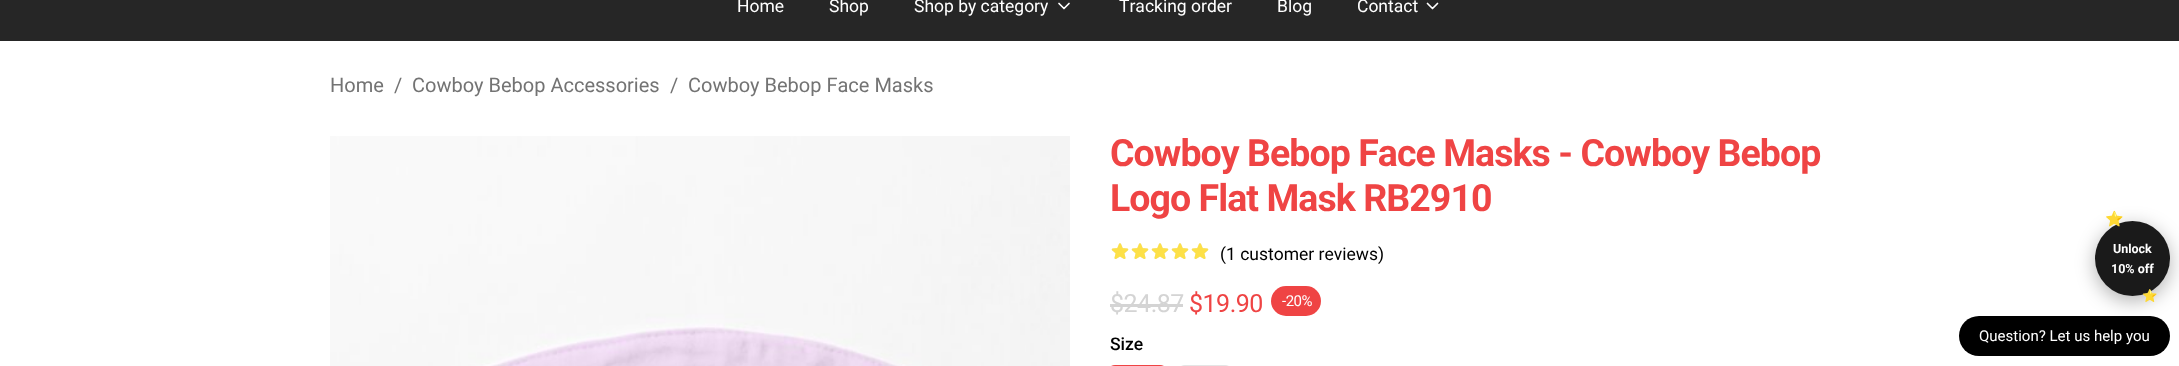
<?xml version="1.0" encoding="UTF-8"?>
<svg xmlns="http://www.w3.org/2000/svg" xmlns:xlink="http://www.w3.org/1999/xlink" width="2179" height="366">
  <style>*{font-kerning:none!important;font-variant-ligatures:none!important}</style>
  <rect width="100%" height="100%" fill="#ffffff" />
  <rect width="2179" height="41" fill="#262626" />
  <path d="M 1059 3.5 l 5 5 l 5 -5" fill="none" stroke="#ffffff" stroke-width="1.7" stroke-linecap="round" stroke-linejoin="round" />
  <path d="M 1427.5 3.5 l 5 5 l 5 -5" fill="none" stroke="#ffffff" stroke-width="1.7" stroke-linecap="round" stroke-linejoin="round" />
  <image x="330" y="136" width="740" height="230" xlink:href="image1.png" />
  <image x="1111" y="243" width="18" height="16" xlink:href="image2.png" />
  <image x="1131" y="243" width="18" height="16" xlink:href="image2.png" />
  <image x="1151" y="243" width="18" height="16" xlink:href="image2.png" />
  <image x="1171" y="243" width="18" height="16" xlink:href="image2.png" />
  <image x="1191" y="243" width="18" height="16" xlink:href="image2.png" />
  <image x="1111" y="243" width="18" height="16" xlink:href="image3.png" />
  <image x="1131" y="243" width="18" height="16" xlink:href="image3.png" />
  <image x="1151" y="243" width="18" height="16" xlink:href="image3.png" />
  <image x="1171" y="243" width="18" height="16" xlink:href="image3.png" />
  <image x="1191" y="243" width="18" height="16" xlink:href="image3.png" />
  <rect x="1110" y="304" width="73" height="3" fill="#d4d4d4" />
  <rect x="1271" y="286" width="50" height="30" rx="15" fill="#ef4444" />
  <rect x="1109.5" y="365.5" width="56" height="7" rx="5.5" fill="none" stroke="#ef4444" />
  <rect x="1179.5" y="365.5" width="51" height="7" rx="5.5" fill="none" stroke="#e5e5e5" />
  <rect x="1959" y="316" width="211" height="40" rx="20" fill="#000000" />
  <rect x="2095" y="226" width="75" height="75" rx="37.5" fill="#000000" fill-opacity="0.3" filter="blur(9.5px)" />
  <circle cx="2132.5" cy="258.5" r="37.5" fill="#1a1a1a" />
  <text x="737" y="12" style="font-family: Roboto; font-size: 17.5px; fill: #ffffff">Home</text>
  <text x="829" y="12" style="font-family: Roboto; font-size: 17.5px; fill: #ffffff">Shop</text>
  <text x="914" y="12" style="font-family: Roboto; font-size: 17.5px; fill: #ffffff">Shop by category</text>
  <text x="1119" y="12" style="font-family: Roboto; font-size: 17.5px; fill: #ffffff">Tracking order</text>
  <text x="1277" y="12" style="font-family: Roboto; font-size: 17.5px; fill: #ffffff">Blog</text>
  <text x="1357" y="12" style="font-family: Roboto; font-size: 17.5px; fill: #ffffff">Contact</text>
  <text x="330" y="92" style="font-family: Roboto; font-size: 20px; fill: #737373">Home</text>
  <text x="394" y="92" style="font-family: Roboto; font-size: 20px; fill: #737373">/</text>
  <text x="412" y="92" style="font-family: Roboto; font-size: 20px; fill: #737373">Cowboy Bebop Accessories</text>
  <text x="670" y="92" style="font-family: Roboto; font-size: 20px; fill: #737373">/</text>
  <text x="688" y="92" style="font-family: Roboto; font-size: 20px; fill: #737373">Cowboy Bebop Face Masks</text>
  <text x="1110" y="166" style="font-family: Roboto; font-size: 37.5px; font-weight: bold; letter-spacing: -0.95px; fill: #ef4444">Cowboy Bebop Face Masks - Cowboy Bebop</text>
  <text x="1110" y="211" style="font-family: Roboto; font-size: 37.5px; font-weight: bold; letter-spacing: -0.95px; fill: #ef4444">Logo Flat Mask RB2910</text>
  <text x="1220" y="260" style="font-family: Roboto; font-size: 17.5px; fill: #000000">(1 customer reviews)</text>
  <text x="1110" y="312" style="font-family: Roboto; font-size: 25px; letter-spacing: -0.5px; fill: #d4d4d4">$24.87</text>
  <text x="1189" y="312" style="font-family: Roboto; font-size: 25px; letter-spacing: -0.5px; fill: #ef4444">$19.90</text>
  <text x="1282" y="306" style="font-family: Roboto; font-size: 15px; letter-spacing: -0.5px; fill: #ffffff">-20%</text>
  <text x="1110" y="350" style="font-family: Roboto; font-size: 17.5px; font-weight: 500; fill: #000000">Size</text>
  <text x="2105" y="224" style="font-family: Noto Color Emoji; font-size: 15px; font-weight: bold; fill: #ffd700">⭐</text>
  <text x="2113" y="253" style="font-family: Roboto; font-size: 12.5px; font-weight: bold; fill: #ffffff">Unlock</text>
  <text x="2111" y="273" style="font-family: Roboto; font-size: 12.5px; font-weight: bold; fill: #ffffff">10% off</text>
  <text x="2142" y="300" style="font-family: Noto Color Emoji; font-size: 12.5px; font-weight: bold; fill: #ffd700">⭐</text>
  <text x="1979" y="341" style="font-family: Roboto; font-size: 15px; fill: #ffffff">Question? Let us help you</text>
</svg>
